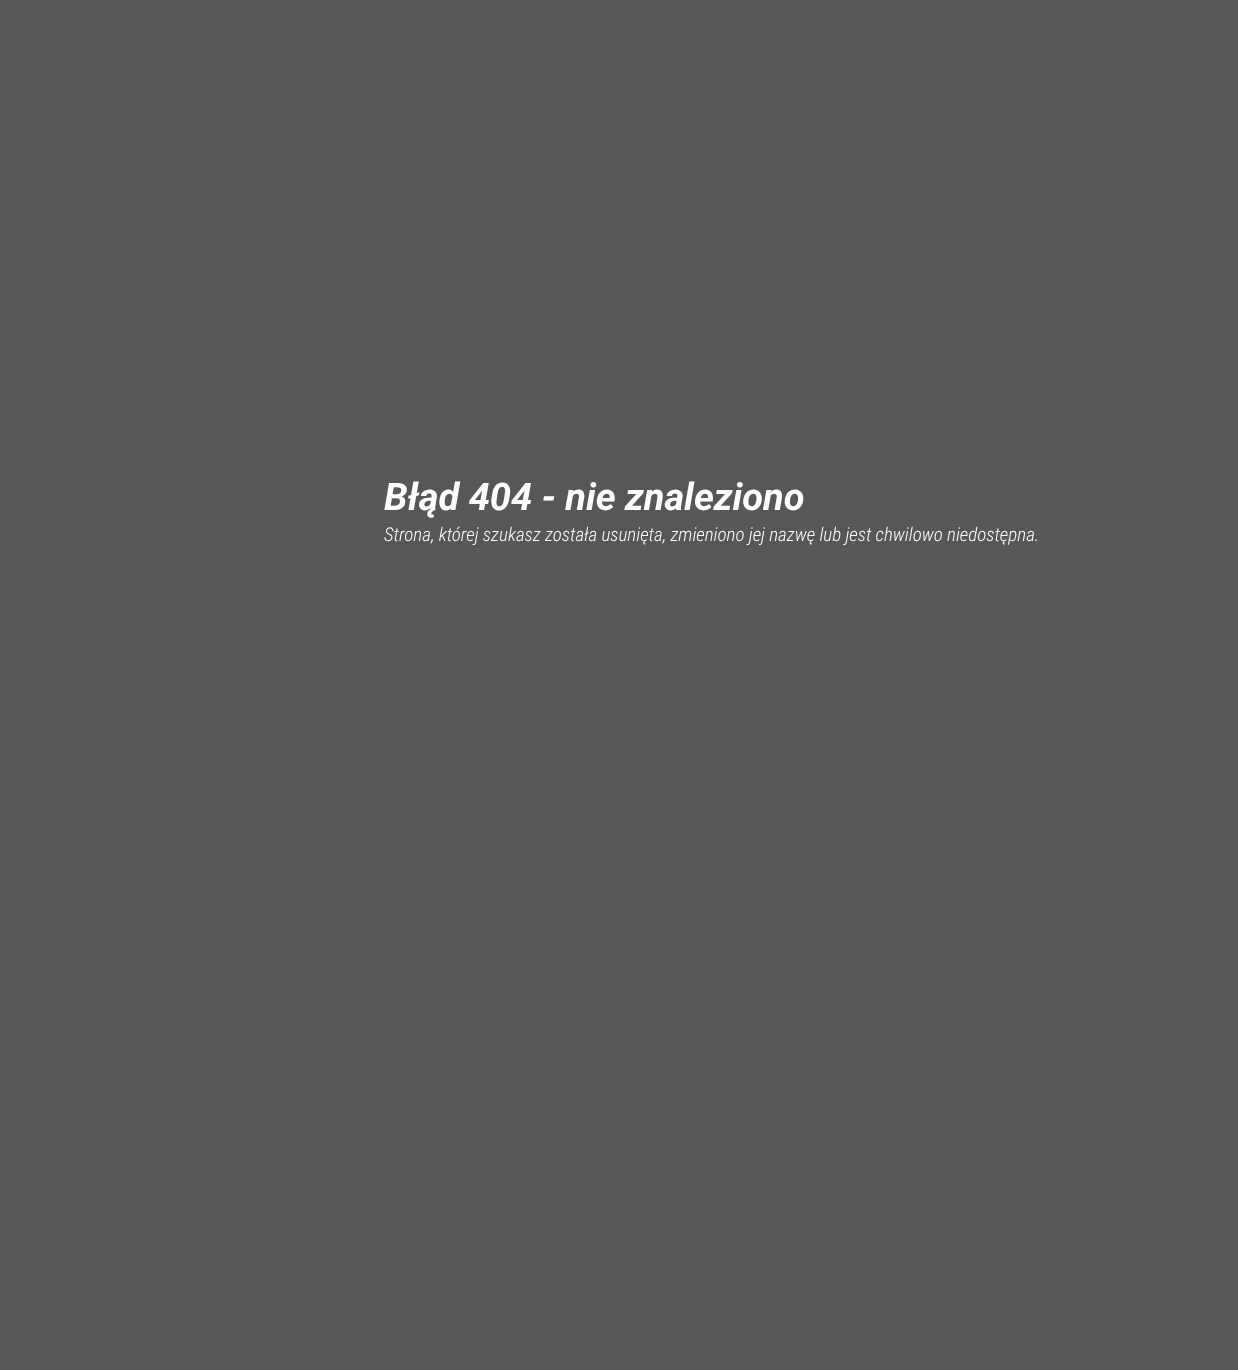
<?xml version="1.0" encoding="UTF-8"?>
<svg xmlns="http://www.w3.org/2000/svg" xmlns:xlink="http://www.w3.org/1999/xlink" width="1238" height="1370">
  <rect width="100%" height="100%" fill="#575658" />
  <text x="384" y="510" style="font-family: Roboto; font-size: 38px; font-weight: bold; font-style: italic; fill: #fefefe">Błąd 404 - nie znaleziono</text>
  <text x="384" y="541" style="font-family: Roboto Condensed; font-size: 19px; font-weight: 300; font-style: italic; fill: #fefefe">Strona, której szukasz została usunięta, zmieniono jej nazwę lub jest chwilowo niedostępna.</text>
</svg>
